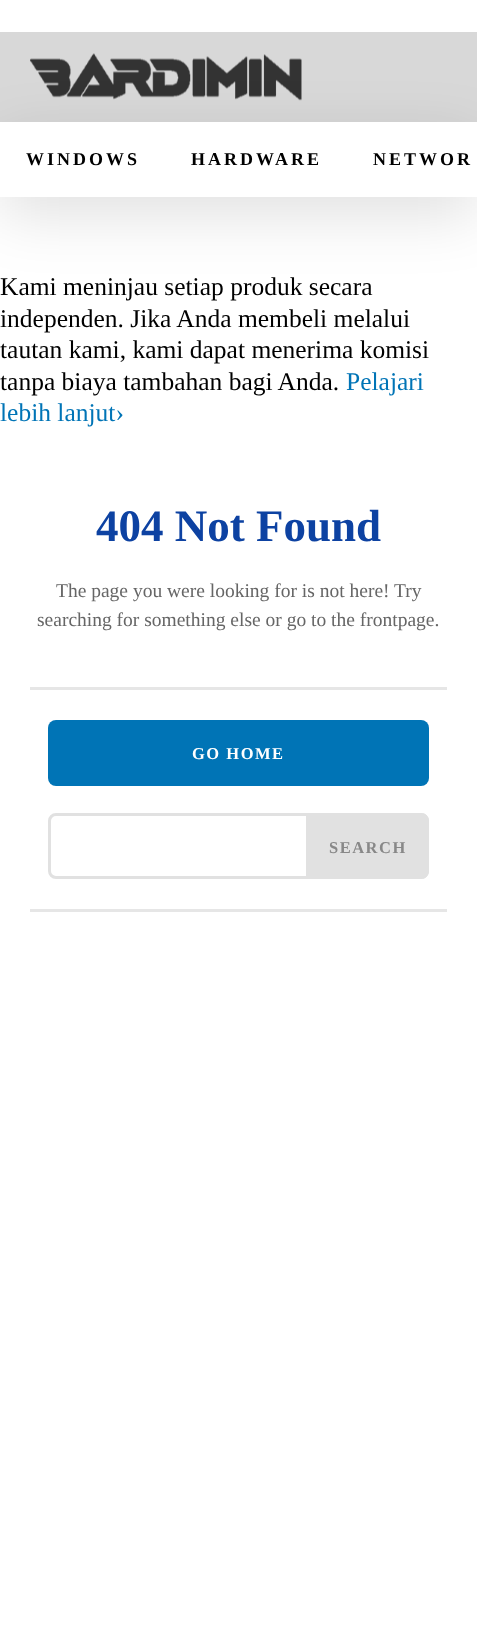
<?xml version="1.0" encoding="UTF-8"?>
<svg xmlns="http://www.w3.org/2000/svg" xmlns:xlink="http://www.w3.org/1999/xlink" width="477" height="1635">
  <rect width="100%" height="100%" fill="#ffffff" />
  <rect y="32" width="477" height="90" fill="#d8d8d8" />
  <image x="30" y="53" width="272" height="48" xlink:href="image1.png" />
  <rect y="140" width="477" height="75" fill="#000000" fill-opacity="0.12" filter="blur(30px)" />
  <rect y="122" width="477" height="75" fill="#ffffff" />
  <rect x="31.5" y="688.5" width="414" height="222" fill="none" stroke="#e6e6e6" stroke-width="3" />
  <rect x="30" y="690" width="417" height="219" fill="#ffffff" />
  <rect x="48" y="720" width="381" height="66" rx="8" fill="#0074b6" />
  <rect x="49.5" y="814.5" width="378" height="63" rx="6.5" fill="none" stroke="#e1e1e1" stroke-width="3" />
  <path d="M 306 813 h 115 c 4.5 0 8 3.5 8 8 v 50 c 0 4.5 -3.5 8 -8 8 h -115 z" fill="#e1e1e1" />
  <text x="26" y="165" style="font-family: Liberation Serif; font-size: 18px; font-weight: bold; letter-spacing: 3px; fill: #000000">WINDOWS</text>
  <text x="191" y="165" style="font-family: Liberation Serif; font-size: 18px; font-weight: bold; letter-spacing: 3px; fill: #000000">HARDWARE</text>
  <text x="373" y="165" style="font-family: Liberation Serif; font-size: 18px; font-weight: bold; letter-spacing: 3px; fill: #000000">NETWOR</text>
  <text x="0" y="295" style="font-family: Liberation Serif; font-size: 25.5px; fill: #000000">Kami meninjau setiap produk secara</text>
  <text x="0" y="327" style="font-family: Liberation Serif; font-size: 25.5px; fill: #000000">independen. Jika Anda membeli melalui</text>
  <text x="0" y="358" style="font-family: Liberation Serif; font-size: 25.5px; fill: #000000">tautan kami, kami dapat menerima komisi</text>
  <text x="0" y="390" style="font-family: Liberation Serif; font-size: 25.5px; fill: #000000">tanpa biaya tambahan bagi Anda.</text>
  <text x="346" y="390" style="font-family: Liberation Serif; font-size: 25.5px; fill: #0074b6">Pelajari</text>
  <text x="0" y="421" style="font-family: Liberation Serif; font-size: 25.5px; fill: #0074b6">lebih lanjut›</text>
  <text x="96" y="541" style="font-family: Liberation Serif; font-size: 45px; font-weight: bold; fill: #0d42a2">404 Not Found</text>
  <text x="56" y="597" style="font-family: Liberation Serif; font-size: 19.5px; fill: #666666">The page you were looking for is not here! Try</text>
  <text x="37" y="626" style="font-family: Liberation Serif; font-size: 19.5px; fill: #666666">searching for something else or go to the frontpage.</text>
  <text x="192" y="759" style="font-family: Liberation Serif; font-size: 16.5px; font-weight: bold; letter-spacing: 1.5px; fill: #ffffff">GO HOME</text>
  <text x="329" y="853" style="font-family: Liberation Serif; font-size: 16.5px; font-weight: bold; letter-spacing: 1.5px; fill: #888888">SEARCH</text>
</svg>
